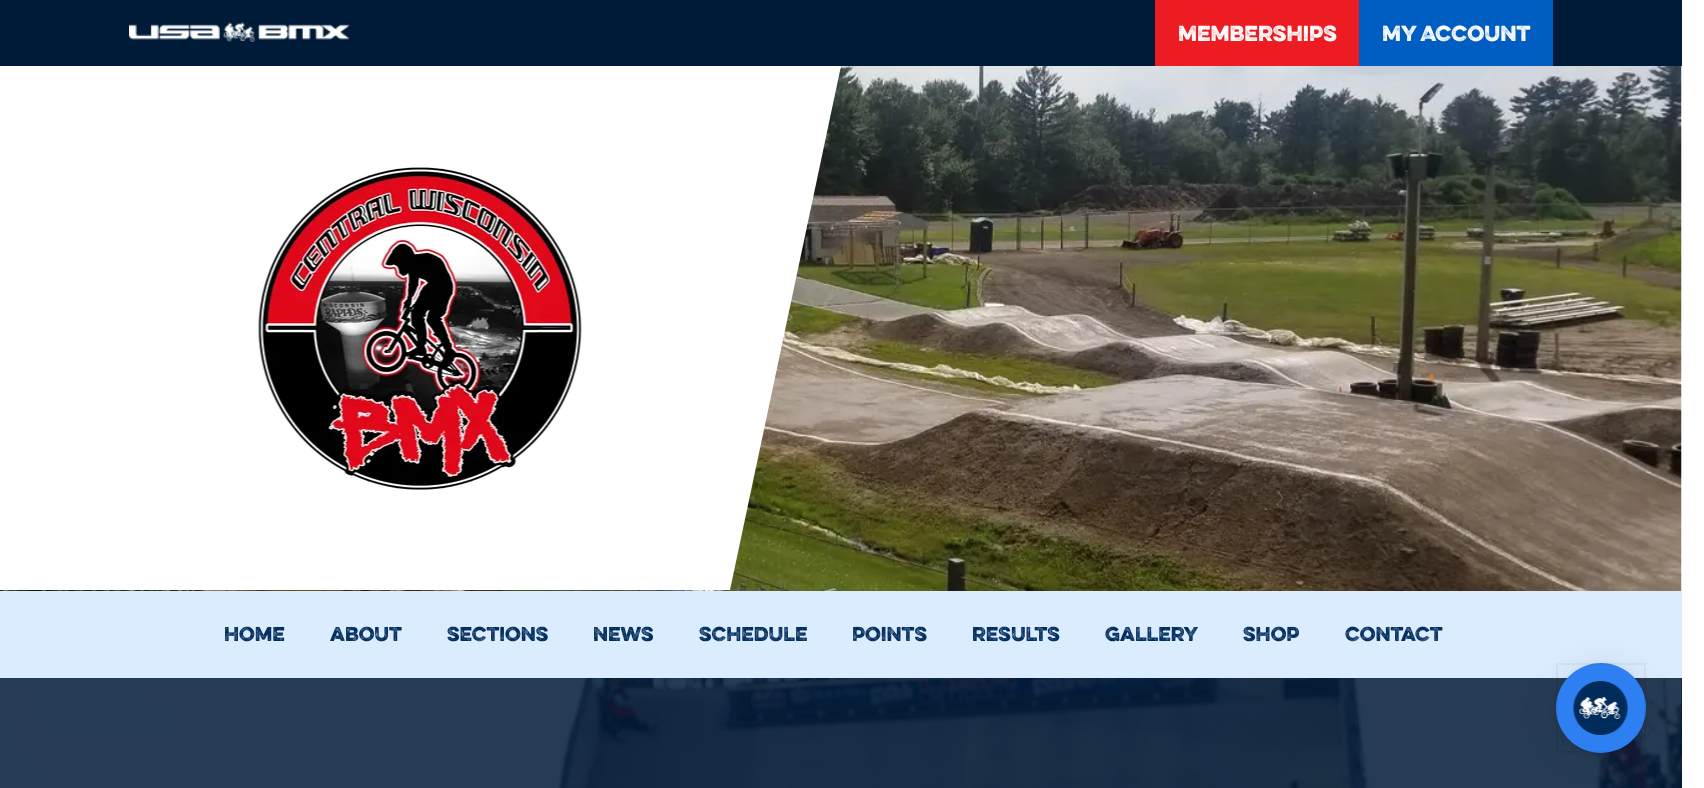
<?xml version="1.0" encoding="UTF-8"?>
<svg xmlns="http://www.w3.org/2000/svg" xmlns:xlink="http://www.w3.org/1999/xlink" width="1704" height="788">
  <rect width="100%" height="100%" fill="#ffffff" />
  <rect width="1682" height="66" fill="#001b38" />
  <image x="129" y="22" width="221" height="20" xlink:href="image1.png" />
  <rect x="1155" width="204" height="66" fill="#ed1c23" />
  <rect x="1359" width="194" height="66" fill="#005dc2" />
  <image x="0" y="66" width="1682" height="525" xlink:href="image2.png" />
  <path d="M 0 66 v 524 h 730 l 111 -524 z" fill="#ffffff" />
  <image x="258" y="167" width="324" height="323" xlink:href="image3.png" />
  <rect y="591" width="1682" height="87" fill="#dbecff" />
  <rect y="678" width="1682" height="110" fill="#001b38" />
  <image x="0" y="678" width="1682" height="110" xlink:href="image4.png" />
  <rect x="1556" y="666" width="90" height="90" rx="45" fill="#000000" fill-opacity="0.08" filter="blur(18px)" />
  <rect x="1556" y="665" width="90" height="90" rx="45" fill="#000000" fill-opacity="0.06" filter="blur(4.5px)" />
  <circle cx="1601" cy="708" r="45" fill="#2e7ff1" />
  <rect x="1557" y="664" width="88" height="88" fill="none" stroke="#000000" stroke-opacity="0.04" stroke-width="2" />
  <image x="1573" y="681" width="55" height="54" xlink:href="image5.png" />
  <text x="1178" y="41" style="font-family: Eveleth; font-size: 19.5px; fill: #ffffff">Memberships</text>
  <text x="1382" y="41" style="font-family: Eveleth; font-size: 19.5px; fill: #ffffff">My Account</text>
  <text x="224" y="641" style="font-family: Eveleth; font-size: 18px; fill: #002c5c">home</text>
  <text x="330" y="641" style="font-family: Eveleth; font-size: 18px; fill: #002c5c">about</text>
  <text x="447" y="641" style="font-family: Eveleth; font-size: 18px; fill: #002c5c">sections</text>
  <text x="593" y="641" style="font-family: Eveleth; font-size: 18px; fill: #002c5c">news</text>
  <text x="699" y="641" style="font-family: Eveleth; font-size: 18px; fill: #002c5c">schedule</text>
  <text x="852" y="641" style="font-family: Eveleth; font-size: 18px; fill: #002c5c">points</text>
  <text x="972" y="641" style="font-family: Eveleth; font-size: 18px; fill: #002c5c">results</text>
  <text x="1105" y="641" style="font-family: Eveleth; font-size: 18px; fill: #002c5c">gallery</text>
  <text x="1243" y="641" style="font-family: Eveleth; font-size: 18px; fill: #002c5c">shop</text>
  <text x="1345" y="641" style="font-family: Eveleth; font-size: 18px; fill: #002c5c">contact</text>
</svg>
